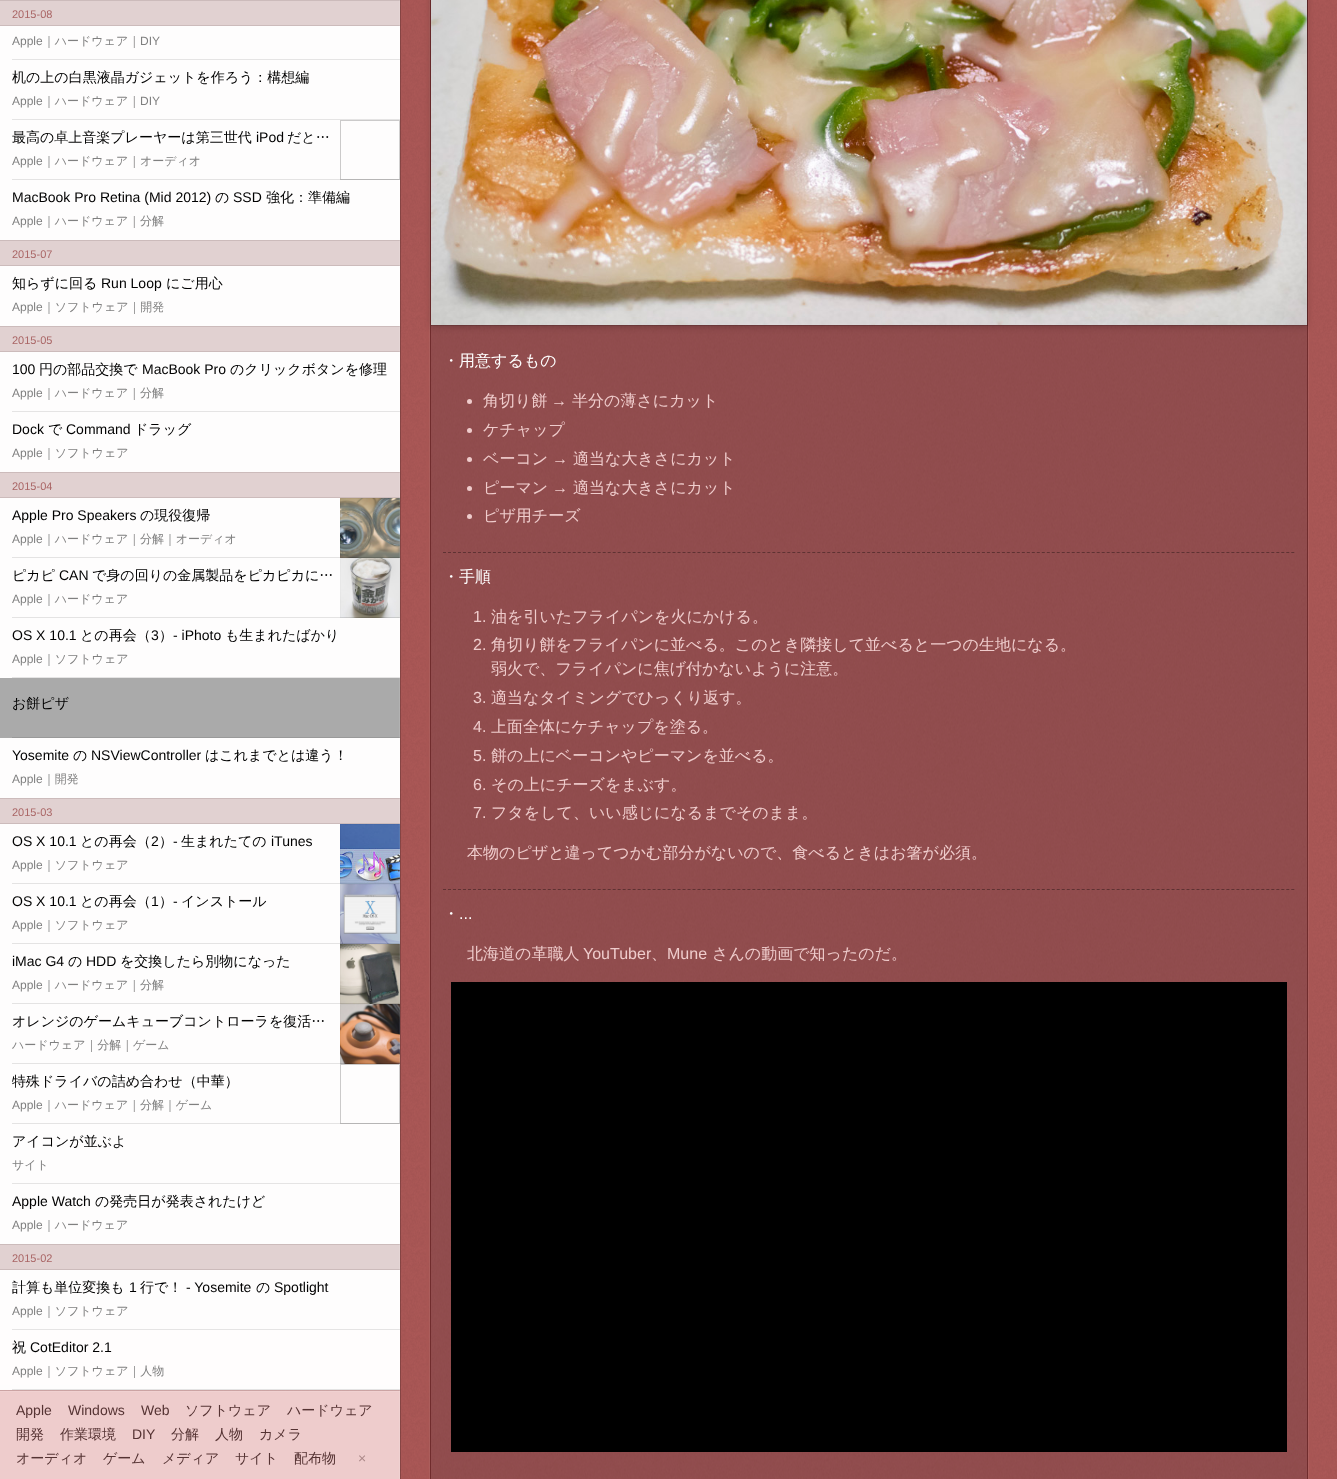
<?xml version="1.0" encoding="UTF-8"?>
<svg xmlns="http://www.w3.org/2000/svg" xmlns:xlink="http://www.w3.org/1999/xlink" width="1337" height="1479">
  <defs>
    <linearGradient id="g1" gradientUnits="userSpaceOnUse" x1="200" y1="1391" x2="200" y2="1383"><stop offset="0" stop-color="#500000" stop-opacity="0.14" /><stop offset="0.5" stop-color="#500000" stop-opacity="0.04" /><stop offset="1" stop-color="#500000" stop-opacity="0" /></linearGradient>
  </defs>
  <rect width="100%" height="100%" fill="#a65553" />
  <image x="400" y="0" width="937" height="1478" xlink:href="image1.png" />
  <rect y="1330" width="400" height="149" fill="#eecccc" />
  <rect y="1390" width="400" height="1" fill="#ddbbbb" />
  <rect y="1385" width="400" height="6" fill="url(#g1)" />
  <rect y="1330" width="400" height="60" fill="#ffffff" fill-opacity="0.8" />
  <rect y="1" width="400" height="24" fill="#e1d1d1" />
  <rect width="400" height="1" fill="#ccbbbb" />
  <rect y="25" width="400" height="1" fill="#ccbbbb" />
  <rect y="26" width="400" height="94" fill="#fefdfd" />
  <rect x="12" y="59" width="388" height="1" fill="#e5e4e4" />
  <rect x="12" y="119" width="388" height="1" fill="#e5e4e4" />
  <rect y="120" width="399" height="60" fill="#fefdfd" />
  <rect x="340.5" y="120.5" width="59" height="59" fill="none" stroke="#cbcaca" />
  <rect x="12" y="179" width="388" height="1" fill="#000000" fill-opacity="0.1" />
  <rect y="180" width="400" height="60" fill="#fefdfd" />
  <rect y="241" width="400" height="24" fill="#e1d1d1" />
  <rect y="240" width="400" height="1" fill="#ccbbbb" />
  <rect y="265" width="400" height="1" fill="#ccbbbb" />
  <rect y="266" width="400" height="60" fill="#fefdfd" />
  <rect y="327" width="400" height="24" fill="#e1d1d1" />
  <rect y="326" width="400" height="1" fill="#ccbbbb" />
  <rect y="351" width="400" height="1" fill="#ccbbbb" />
  <rect y="352" width="400" height="120" fill="#fefdfd" />
  <rect x="12" y="411" width="388" height="1" fill="#e5e4e4" />
  <rect y="473" width="400" height="24" fill="#e1d1d1" />
  <rect y="472" width="400" height="1" fill="#ccbbbb" />
  <rect y="497" width="400" height="1" fill="#ccbbbb" />
  <rect y="498" width="399" height="120" fill="#fefdfd" />
  <rect x="340.5" y="498.5" width="59" height="59" fill="none" stroke="#cbcaca" />
  <image x="340" y="498" width="60" height="60" xlink:href="image2.png" />
  <rect x="12" y="557" width="388" height="1" fill="#000000" fill-opacity="0.1" />
  <rect x="340.5" y="558.5" width="59" height="59" fill="none" stroke="#cbcaca" />
  <image x="340" y="558" width="60" height="60" xlink:href="image3.png" />
  <rect x="12" y="617" width="388" height="1" fill="#000000" fill-opacity="0.1" />
  <rect y="618" width="400" height="60" fill="#fefdfd" />
  <rect x="12" y="677" width="388" height="1" fill="#e5e4e4" />
  <rect y="678" width="400" height="60" fill="#aaaaaa" />
  <rect x="12" y="737" width="388" height="1" fill="#999999" />
  <rect y="738" width="400" height="60" fill="#fefdfd" />
  <rect y="799" width="400" height="24" fill="#e1d1d1" />
  <rect y="798" width="400" height="1" fill="#ccbbbb" />
  <rect y="823" width="400" height="1" fill="#ccbbbb" />
  <rect y="824" width="399" height="300" fill="#fefdfd" />
  <rect x="340.5" y="824.5" width="59" height="59" fill="none" stroke="#cbcaca" />
  <image x="340" y="824" width="60" height="60" xlink:href="image4.png" />
  <rect x="12" y="883" width="388" height="1" fill="#000000" fill-opacity="0.1" />
  <rect x="340.5" y="884.5" width="59" height="59" fill="none" stroke="#cbcaca" />
  <image x="340" y="884" width="60" height="60" xlink:href="image5.png" />
  <rect x="12" y="943" width="388" height="1" fill="#000000" fill-opacity="0.1" />
  <rect x="340.5" y="944.5" width="59" height="59" fill="none" stroke="#cbcaca" />
  <image x="340" y="944" width="60" height="60" xlink:href="image6.png" />
  <rect x="12" y="1003" width="388" height="1" fill="#000000" fill-opacity="0.1" />
  <rect x="340.5" y="1004.5" width="59" height="59" fill="none" stroke="#cbcaca" />
  <image x="340" y="1004" width="60" height="60" xlink:href="image7.png" />
  <rect x="12" y="1063" width="388" height="1" fill="#000000" fill-opacity="0.1" />
  <rect x="340.5" y="1064.5" width="59" height="59" fill="none" stroke="#cbcaca" />
  <rect x="12" y="1123" width="388" height="1" fill="#000000" fill-opacity="0.1" />
  <rect y="1124" width="400" height="120" fill="#fefdfd" />
  <rect x="12" y="1183" width="388" height="1" fill="#e5e4e4" />
  <rect y="1245" width="400" height="24" fill="#e1d1d1" />
  <rect y="1244" width="400" height="1" fill="#ccbbbb" />
  <rect y="1269" width="400" height="1" fill="#ccbbbb" />
  <rect y="1270" width="400" height="60" fill="#fefdfd" />
  <rect x="12" y="1329" width="388" height="1" fill="#e5e4e4" />
  <rect y="1330" width="400" height="60" fill="#ffffff" fill-opacity="0.8" />
  <rect x="12" y="1389" width="388" height="1" fill="#e4e3e3" />
  <rect y="1391" width="400" height="1" fill="#f0d1d1" />
  <rect x="399" width="1" height="1479" fill="#ffffff" fill-opacity="0.1" />
  <rect x="400" width="1" height="1479" fill="#000000" fill-opacity="0.2" />
  <image x="426" y="0" width="886" height="1479" xlink:href="image8.png" />
  <rect x="431.25" y="-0.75" width="876.5" height="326.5" fill="none" stroke="#000000" stroke-opacity="0.27" stroke-width="0.5" />
  <rect x="431" y="-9" width="876" height="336" fill="#000000" fill-opacity="0.2" filter="blur(3px)" />
  <image x="431" y="0" width="876" height="325" xlink:href="image9.png" />
  <circle cx="469.5" cy="401.5" r="2.5" fill="#efcccc" />
  <circle cx="469.5" cy="430.5" r="2.5" fill="#efcccc" />
  <circle cx="469.5" cy="459.5" r="2.5" fill="#efcccc" />
  <circle cx="469.5" cy="488.5" r="2.5" fill="#efcccc" />
  <circle cx="469.5" cy="516.5" r="2.5" fill="#efcccc" />
  <path d="M 443 552.5 h 852" fill="none" stroke="#000000" stroke-opacity="0.34" stroke-dasharray="3 1.99" />
  <path d="M 443 889.5 h 852" fill="none" stroke="#000000" stroke-opacity="0.34" stroke-dasharray="3 1.99" />
  <rect x="451" y="982" width="836" height="470" fill="#000000" />
  <text x="12" y="18" style="font-family: Liberation Sans; font-size: 11px; fill: #aa6666">2015-08</text>
  <text x="12" y="45" style="font-family: Liberation Sans; font-size: 12px; fill: #808080">Apple</text>
  <text x="43" y="45" style="font-family: WenQuanYi Zen Hei; font-size: 12px; font-weight: 500; fill: #808080">｜ハードウェア｜</text>
  <text x="140" y="45" style="font-family: Liberation Sans; font-size: 12px; fill: #808080">DIY</text>
  <text x="12" y="82" style="font-family: WenQuanYi Zen Hei; font-size: 14px; font-weight: 500; fill: #000000">机の上の白黒液晶ガジェットを作ろう：構想編</text>
  <text x="12" y="105" style="font-family: Liberation Sans; font-size: 12px; fill: #808080">Apple</text>
  <text x="43" y="105" style="font-family: WenQuanYi Zen Hei; font-size: 12px; font-weight: 500; fill: #808080">｜ハードウェア｜</text>
  <text x="140" y="105" style="font-family: Liberation Sans; font-size: 12px; fill: #808080">DIY</text>
  <text x="12" y="142" style="font-family: WenQuanYi Zen Hei; font-size: 14px; font-weight: 500; fill: #000000">最高の卓上音楽プレーヤーは第三世代</text>
  <text x="256" y="142" style="font-family: Liberation Sans; font-size: 14px; fill: #000000">iPod</text>
  <text x="287" y="142" style="font-family: WenQuanYi Zen Hei; font-size: 14px; font-weight: 500; fill: #000000">だと…</text>
  <text x="12" y="165" style="font-family: Liberation Sans; font-size: 12px; fill: #808080">Apple</text>
  <text x="43" y="165" style="font-family: WenQuanYi Zen Hei; font-size: 12px; font-weight: 500; fill: #808080">｜ハードウェア｜オーディオ</text>
  <text x="12" y="202" style="font-family: Liberation Sans; font-size: 14px; fill: #000000">MacBook Pro Retina (Mid 2012)</text>
  <text x="215" y="202" style="font-family: WenQuanYi Zen Hei; font-size: 14px; font-weight: 500; fill: #000000">の</text>
  <text x="233" y="202" style="font-family: Liberation Sans; font-size: 14px; fill: #000000">SSD</text>
  <text x="266" y="202" style="font-family: WenQuanYi Zen Hei; font-size: 14px; font-weight: 500; fill: #000000">強化：準備編</text>
  <text x="12" y="225" style="font-family: Liberation Sans; font-size: 12px; fill: #808080">Apple</text>
  <text x="43" y="225" style="font-family: WenQuanYi Zen Hei; font-size: 12px; font-weight: 500; fill: #808080">｜ハードウェア｜分解</text>
  <text x="12" y="258" style="font-family: Liberation Sans; font-size: 11px; fill: #aa6666">2015-07</text>
  <text x="12" y="288" style="font-family: WenQuanYi Zen Hei; font-size: 14px; font-weight: 500; fill: #000000">知らずに回る</text>
  <text x="101" y="288" style="font-family: Liberation Sans; font-size: 14px; fill: #000000">Run Loop</text>
  <text x="166" y="288" style="font-family: WenQuanYi Zen Hei; font-size: 14px; font-weight: 500; fill: #000000">にご用心</text>
  <text x="12" y="311" style="font-family: Liberation Sans; font-size: 12px; fill: #808080">Apple</text>
  <text x="43" y="311" style="font-family: WenQuanYi Zen Hei; font-size: 12px; font-weight: 500; fill: #808080">｜ソフトウェア｜開発</text>
  <text x="12" y="344" style="font-family: Liberation Sans; font-size: 11px; fill: #aa6666">2015-05</text>
  <text x="12" y="374" style="font-family: Liberation Sans; font-size: 14px; fill: #000000">100</text>
  <text x="39" y="374" style="font-family: WenQuanYi Zen Hei; font-size: 14px; font-weight: 500; fill: #000000">円の部品交換で</text>
  <text x="142" y="374" style="font-family: Liberation Sans; font-size: 14px; fill: #000000">MacBook Pro</text>
  <text x="230" y="374" style="font-family: WenQuanYi Zen Hei; font-size: 14px; font-weight: 500; fill: #000000">のクリックボタンを修理</text>
  <text x="12" y="397" style="font-family: Liberation Sans; font-size: 12px; fill: #808080">Apple</text>
  <text x="43" y="397" style="font-family: WenQuanYi Zen Hei; font-size: 12px; font-weight: 500; fill: #808080">｜ハードウェア｜分解</text>
  <text x="12" y="434" style="font-family: Liberation Sans; font-size: 14px; fill: #000000">Dock</text>
  <text x="48" y="434" style="font-family: WenQuanYi Zen Hei; font-size: 14px; font-weight: 500; fill: #000000">で</text>
  <text x="66" y="434" style="font-family: Liberation Sans; font-size: 14px; fill: #000000">Command</text>
  <text x="134" y="434" style="font-family: WenQuanYi Zen Hei; font-size: 14px; font-weight: 500; fill: #000000">ドラッグ</text>
  <text x="12" y="457" style="font-family: Liberation Sans; font-size: 12px; fill: #808080">Apple</text>
  <text x="43" y="457" style="font-family: WenQuanYi Zen Hei; font-size: 12px; font-weight: 500; fill: #808080">｜ソフトウェア</text>
  <text x="12" y="490" style="font-family: Liberation Sans; font-size: 11px; fill: #aa6666">2015-04</text>
  <text x="12" y="520" style="font-family: Liberation Sans; font-size: 14px; fill: #000000">Apple Pro Speakers</text>
  <text x="140" y="520" style="font-family: WenQuanYi Zen Hei; font-size: 14px; font-weight: 500; fill: #000000">の現役復帰</text>
  <text x="12" y="543" style="font-family: Liberation Sans; font-size: 12px; fill: #808080">Apple</text>
  <text x="43" y="543" style="font-family: WenQuanYi Zen Hei; font-size: 12px; font-weight: 500; fill: #808080">｜ハードウェア｜分解｜オーディオ</text>
  <text x="12" y="580" style="font-family: WenQuanYi Zen Hei; font-size: 14px; font-weight: 500; fill: #000000">ピカピ</text>
  <text x="59" y="580" style="font-family: Liberation Sans; font-size: 14px; fill: #000000">CAN</text>
  <text x="92" y="580" style="font-family: WenQuanYi Zen Hei; font-size: 14px; font-weight: 500; fill: #000000">で身の回りの金属製品をピカピカに…</text>
  <text x="12" y="603" style="font-family: Liberation Sans; font-size: 12px; fill: #808080">Apple</text>
  <text x="43" y="603" style="font-family: WenQuanYi Zen Hei; font-size: 12px; font-weight: 500; fill: #808080">｜ハードウェア</text>
  <text x="12" y="640" style="font-family: Liberation Sans; font-size: 14px; fill: #000000">OS X 10.1</text>
  <text x="80" y="640" style="font-family: WenQuanYi Zen Hei; font-size: 14px; font-weight: 500; fill: #000000">との再会（</text>
  <text x="151" y="640" style="font-family: Liberation Sans; font-size: 14px; fill: #000000">3</text>
  <text x="159" y="640" style="font-family: WenQuanYi Zen Hei; font-size: 14px; font-weight: 500; fill: #000000">）</text>
  <text x="173" y="640" style="font-family: Liberation Sans; font-size: 14px; fill: #000000">- iPhoto</text>
  <text x="225" y="640" style="font-family: WenQuanYi Zen Hei; font-size: 14px; font-weight: 500; fill: #000000">も生まれたばかり</text>
  <text x="12" y="663" style="font-family: Liberation Sans; font-size: 12px; fill: #808080">Apple</text>
  <text x="43" y="663" style="font-family: WenQuanYi Zen Hei; font-size: 12px; font-weight: 500; fill: #808080">｜ソフトウェア</text>
  <text x="12" y="708" style="font-family: WenQuanYi Zen Hei; font-size: 14px; font-weight: 500; fill: #000000">お餅ピザ</text>
  <text x="12" y="760" style="font-family: Liberation Sans; font-size: 14px; fill: #000000">Yosemite</text>
  <text x="73" y="760" style="font-family: WenQuanYi Zen Hei; font-size: 14px; font-weight: 500; fill: #000000">の</text>
  <text x="91" y="760" style="font-family: Liberation Sans; font-size: 14px; fill: #000000">NSViewController</text>
  <text x="205" y="760" style="font-family: WenQuanYi Zen Hei; font-size: 14px; font-weight: 500; fill: #000000">はこれまでとは違う！</text>
  <text x="12" y="783" style="font-family: Liberation Sans; font-size: 12px; fill: #808080">Apple</text>
  <text x="43" y="783" style="font-family: WenQuanYi Zen Hei; font-size: 12px; font-weight: 500; fill: #808080">｜開発</text>
  <text x="12" y="816" style="font-family: Liberation Sans; font-size: 11px; fill: #aa6666">2015-03</text>
  <text x="12" y="846" style="font-family: Liberation Sans; font-size: 14px; fill: #000000">OS X 10.1</text>
  <text x="80" y="846" style="font-family: WenQuanYi Zen Hei; font-size: 14px; font-weight: 500; fill: #000000">との再会（</text>
  <text x="151" y="846" style="font-family: Liberation Sans; font-size: 14px; fill: #000000">2</text>
  <text x="159" y="846" style="font-family: WenQuanYi Zen Hei; font-size: 14px; font-weight: 500; fill: #000000">）</text>
  <text x="173" y="846" style="font-family: Liberation Sans; font-size: 14px; fill: #000000">-</text>
  <text x="181" y="846" style="font-family: WenQuanYi Zen Hei; font-size: 14px; font-weight: 500; fill: #000000">生まれたての</text>
  <text x="271" y="846" style="font-family: Liberation Sans; font-size: 14px; fill: #000000">iTunes</text>
  <text x="12" y="869" style="font-family: Liberation Sans; font-size: 12px; fill: #808080">Apple</text>
  <text x="43" y="869" style="font-family: WenQuanYi Zen Hei; font-size: 12px; font-weight: 500; fill: #808080">｜ソフトウェア</text>
  <text x="12" y="906" style="font-family: Liberation Sans; font-size: 14px; fill: #000000">OS X 10.1</text>
  <text x="80" y="906" style="font-family: WenQuanYi Zen Hei; font-size: 14px; font-weight: 500; fill: #000000">との再会（</text>
  <text x="151" y="906" style="font-family: Liberation Sans; font-size: 14px; fill: #000000">1</text>
  <text x="159" y="906" style="font-family: WenQuanYi Zen Hei; font-size: 14px; font-weight: 500; fill: #000000">）</text>
  <text x="173" y="906" style="font-family: Liberation Sans; font-size: 14px; fill: #000000">-</text>
  <text x="181" y="906" style="font-family: WenQuanYi Zen Hei; font-size: 14px; font-weight: 500; fill: #000000">インストール</text>
  <text x="12" y="929" style="font-family: Liberation Sans; font-size: 12px; fill: #808080">Apple</text>
  <text x="43" y="929" style="font-family: WenQuanYi Zen Hei; font-size: 12px; font-weight: 500; fill: #808080">｜ソフトウェア</text>
  <text x="12" y="966" style="font-family: Liberation Sans; font-size: 14px; fill: #000000">iMac G4</text>
  <text x="68" y="966" style="font-family: WenQuanYi Zen Hei; font-size: 14px; font-weight: 500; fill: #000000">の</text>
  <text x="86" y="966" style="font-family: Liberation Sans; font-size: 14px; fill: #000000">HDD</text>
  <text x="120" y="966" style="font-family: WenQuanYi Zen Hei; font-size: 14px; font-weight: 500; fill: #000000">を交換したら別物になった</text>
  <text x="12" y="989" style="font-family: Liberation Sans; font-size: 12px; fill: #808080">Apple</text>
  <text x="43" y="989" style="font-family: WenQuanYi Zen Hei; font-size: 12px; font-weight: 500; fill: #808080">｜ハードウェア｜分解</text>
  <text x="12" y="1026" style="font-family: WenQuanYi Zen Hei; font-size: 14px; font-weight: 500; fill: #000000">オレンジのゲームキューブコントローラを復活…</text>
  <text x="12" y="1049" style="font-family: WenQuanYi Zen Hei; font-size: 12px; font-weight: 500; fill: #808080">ハードウェア｜分解｜ゲーム</text>
  <text x="12" y="1086" style="font-family: WenQuanYi Zen Hei; font-size: 14px; font-weight: 500; fill: #000000">特殊ドライバの詰め合わせ（中華）</text>
  <text x="12" y="1109" style="font-family: Liberation Sans; font-size: 12px; fill: #808080">Apple</text>
  <text x="43" y="1109" style="font-family: WenQuanYi Zen Hei; font-size: 12px; font-weight: 500; fill: #808080">｜ハードウェア｜分解｜ゲーム</text>
  <text x="12" y="1146" style="font-family: WenQuanYi Zen Hei; font-size: 14px; font-weight: 500; fill: #000000">アイコンが並ぶよ</text>
  <text x="12" y="1169" style="font-family: WenQuanYi Zen Hei; font-size: 12px; font-weight: 500; fill: #808080">サイト</text>
  <text x="12" y="1206" style="font-family: Liberation Sans; font-size: 14px; fill: #000000">Apple Watch</text>
  <text x="95" y="1206" style="font-family: WenQuanYi Zen Hei; font-size: 14px; font-weight: 500; fill: #000000">の発売日が発表されたけど</text>
  <text x="12" y="1229" style="font-family: Liberation Sans; font-size: 12px; fill: #808080">Apple</text>
  <text x="43" y="1229" style="font-family: WenQuanYi Zen Hei; font-size: 12px; font-weight: 500; fill: #808080">｜ハードウェア</text>
  <text x="12" y="1262" style="font-family: Liberation Sans; font-size: 11px; fill: #aa6666">2015-02</text>
  <text x="12" y="1292" style="font-family: WenQuanYi Zen Hei; font-size: 14px; font-weight: 500; fill: #000000">計算も単位変換も</text>
  <text x="129" y="1292" style="font-family: Liberation Sans; font-size: 14px; fill: #000000">1</text>
  <text x="140" y="1292" style="font-family: WenQuanYi Zen Hei; font-size: 14px; font-weight: 500; fill: #000000">行で！</text>
  <text x="186" y="1292" style="font-family: Liberation Sans; font-size: 14px; fill: #000000">- Yosemite</text>
  <text x="256" y="1292" style="font-family: WenQuanYi Zen Hei; font-size: 14px; font-weight: 500; fill: #000000">の</text>
  <text x="274" y="1292" style="font-family: Liberation Sans; font-size: 14px; fill: #000000">Spotlight</text>
  <text x="12" y="1315" style="font-family: Liberation Sans; font-size: 12px; fill: #808080">Apple</text>
  <text x="43" y="1315" style="font-family: WenQuanYi Zen Hei; font-size: 12px; font-weight: 500; fill: #808080">｜ソフトウェア</text>
  <text x="12" y="1352" style="font-family: WenQuanYi Zen Hei; font-size: 14px; font-weight: 500; fill: #000000">祝</text>
  <text x="30" y="1352" style="font-family: Liberation Sans; font-size: 14px; fill: #000000">CotEditor 2.1</text>
  <text x="12" y="1375" style="font-family: Liberation Sans; font-size: 12px; fill: #808080">Apple</text>
  <text x="43" y="1375" style="font-family: WenQuanYi Zen Hei; font-size: 12px; font-weight: 500; fill: #808080">｜ソフトウェア｜人物</text>
  <text x="16" y="1415" style="font-family: Liberation Sans; font-size: 14px; fill: #553333">Apple</text>
  <text x="68" y="1415" style="font-family: Liberation Sans; font-size: 14px; fill: #553333">Windows</text>
  <text x="141" y="1415" style="font-family: Liberation Sans; font-size: 14px; fill: #553333">Web</text>
  <text x="185" y="1415" style="font-family: WenQuanYi Zen Hei; font-size: 14px; font-weight: 500; fill: #553333">ソフトウェア</text>
  <text x="287" y="1415" style="font-family: WenQuanYi Zen Hei; font-size: 14px; font-weight: 500; fill: #553333">ハードウェア</text>
  <text x="16" y="1439" style="font-family: WenQuanYi Zen Hei; font-size: 14px; font-weight: 500; fill: #553333">開発</text>
  <text x="60" y="1439" style="font-family: WenQuanYi Zen Hei; font-size: 14px; font-weight: 500; fill: #553333">作業環境</text>
  <text x="132" y="1439" style="font-family: Liberation Sans; font-size: 14px; fill: #553333">DIY</text>
  <text x="171" y="1439" style="font-family: WenQuanYi Zen Hei; font-size: 14px; font-weight: 500; fill: #553333">分解</text>
  <text x="215" y="1439" style="font-family: WenQuanYi Zen Hei; font-size: 14px; font-weight: 500; fill: #553333">人物</text>
  <text x="259" y="1439" style="font-family: WenQuanYi Zen Hei; font-size: 14px; font-weight: 500; fill: #553333">カメラ</text>
  <text x="16" y="1463" style="font-family: WenQuanYi Zen Hei; font-size: 14px; font-weight: 500; fill: #553333">オーディオ</text>
  <text x="103" y="1463" style="font-family: WenQuanYi Zen Hei; font-size: 14px; font-weight: 500; fill: #553333">ゲーム</text>
  <text x="162" y="1463" style="font-family: WenQuanYi Zen Hei; font-size: 14px; font-weight: 500; fill: #553333">メディア</text>
  <text x="235" y="1463" style="font-family: WenQuanYi Zen Hei; font-size: 14px; font-weight: 500; fill: #553333">サイト</text>
  <text x="294" y="1463" style="font-family: WenQuanYi Zen Hei; font-size: 14px; font-weight: 500; fill: #553333">配布物</text>
  <text x="358" y="1463" style="font-family: Liberation Sans; font-size: 14px; fill: #aa8888">×</text>
  <text x="443" y="366" style="font-family: WenQuanYi Zen Hei; font-size: 16px; font-weight: 500; fill: #ffffff">・用意するもの</text>
  <text x="483" y="406" style="font-family: WenQuanYi Zen Hei; font-size: 16px; font-weight: 500; fill: #efcccc">角切り餅</text>
  <text x="551" y="406" style="font-family: Liberation Sans; font-size: 16px; fill: #efcccc">→</text>
  <text x="572" y="406" style="font-family: WenQuanYi Zen Hei; font-size: 16px; font-weight: 500; fill: #efcccc">半分の薄さにカット</text>
  <text x="483" y="435" style="font-family: WenQuanYi Zen Hei; font-size: 16px; font-weight: 500; fill: #efcccc">ケチャップ</text>
  <text x="483" y="464" style="font-family: WenQuanYi Zen Hei; font-size: 16px; font-weight: 500; fill: #efcccc">ベーコン</text>
  <text x="552" y="464" style="font-family: Liberation Sans; font-size: 16px; fill: #efcccc">→</text>
  <text x="573" y="464" style="font-family: WenQuanYi Zen Hei; font-size: 16px; font-weight: 500; fill: #efcccc">適当な大きさにカット</text>
  <text x="483" y="493" style="font-family: WenQuanYi Zen Hei; font-size: 16px; font-weight: 500; fill: #efcccc">ピーマン</text>
  <text x="552" y="493" style="font-family: Liberation Sans; font-size: 16px; fill: #efcccc">→</text>
  <text x="573" y="493" style="font-family: WenQuanYi Zen Hei; font-size: 16px; font-weight: 500; fill: #efcccc">適当な大きさにカット</text>
  <text x="483" y="521" style="font-family: WenQuanYi Zen Hei; font-size: 16px; font-weight: 500; fill: #efcccc">ピザ用チーズ</text>
  <text x="443" y="582" style="font-family: WenQuanYi Zen Hei; font-size: 16px; font-weight: 500; fill: #ffffff">・手順</text>
  <text x="473" y="622" style="font-family: Liberation Sans; font-size: 16px; fill: #efcccc">1.</text>
  <text x="491" y="622" style="font-family: WenQuanYi Zen Hei; font-size: 16px; font-weight: 500; fill: #efcccc">油を引いたフライパンを火にかける。</text>
  <text x="473" y="650" style="font-family: Liberation Sans; font-size: 16px; fill: #efcccc">2.</text>
  <text x="491" y="650" style="font-family: WenQuanYi Zen Hei; font-size: 16px; font-weight: 500; fill: #efcccc">角切り餅をフライパンに並べる。このとき隣接して並べると一つの生地になる。</text>
  <text x="491" y="674" style="font-family: WenQuanYi Zen Hei; font-size: 16px; font-weight: 500; fill: #efcccc">弱火で、フライパンに焦げ付かないように注意。</text>
  <text x="473" y="703" style="font-family: Liberation Sans; font-size: 16px; fill: #efcccc">3.</text>
  <text x="491" y="703" style="font-family: WenQuanYi Zen Hei; font-size: 16px; font-weight: 500; fill: #efcccc">適当なタイミングでひっくり返す。</text>
  <text x="473" y="732" style="font-family: Liberation Sans; font-size: 16px; fill: #efcccc">4.</text>
  <text x="491" y="732" style="font-family: WenQuanYi Zen Hei; font-size: 16px; font-weight: 500; fill: #efcccc">上面全体にケチャップを塗る。</text>
  <text x="473" y="761" style="font-family: Liberation Sans; font-size: 16px; fill: #efcccc">5.</text>
  <text x="491" y="761" style="font-family: WenQuanYi Zen Hei; font-size: 16px; font-weight: 500; fill: #efcccc">餅の上にベーコンやピーマンを並べる。</text>
  <text x="473" y="790" style="font-family: Liberation Sans; font-size: 16px; fill: #efcccc">6.</text>
  <text x="491" y="790" style="font-family: WenQuanYi Zen Hei; font-size: 16px; font-weight: 500; fill: #efcccc">その上にチーズをまぶす。</text>
  <text x="473" y="818" style="font-family: Liberation Sans; font-size: 16px; fill: #efcccc">7.</text>
  <text x="491" y="818" style="font-family: WenQuanYi Zen Hei; font-size: 16px; font-weight: 500; fill: #efcccc">フタをして、いい感じになるまでそのまま。</text>
  <text x="467" y="858" style="font-family: WenQuanYi Zen Hei; font-size: 16px; font-weight: 500; fill: #efcccc">本物のピザと違ってつかむ部分がないので、食べるときはお箸が必須。</text>
  <text x="443" y="919" style="font-family: WenQuanYi Zen Hei; font-size: 16px; font-weight: 500; fill: #ffffff">・</text>
  <text x="459" y="919" style="font-family: Liberation Sans; font-size: 16px; fill: #ffffff">...</text>
  <text x="467" y="959" style="font-family: WenQuanYi Zen Hei; font-size: 16px; font-weight: 500; fill: #efcccc">北海道の革職人</text>
  <text x="583" y="959" style="font-family: Liberation Sans; font-size: 16px; fill: #efcccc">YouTuber</text>
  <text x="651" y="959" style="font-family: WenQuanYi Zen Hei; font-size: 16px; font-weight: 500; fill: #efcccc">、</text>
  <text x="667" y="959" style="font-family: Liberation Sans; font-size: 16px; fill: #efcccc">Mune</text>
  <text x="712" y="959" style="font-family: WenQuanYi Zen Hei; font-size: 16px; font-weight: 500; fill: #efcccc">さんの動画で知ったのだ。</text>
</svg>
